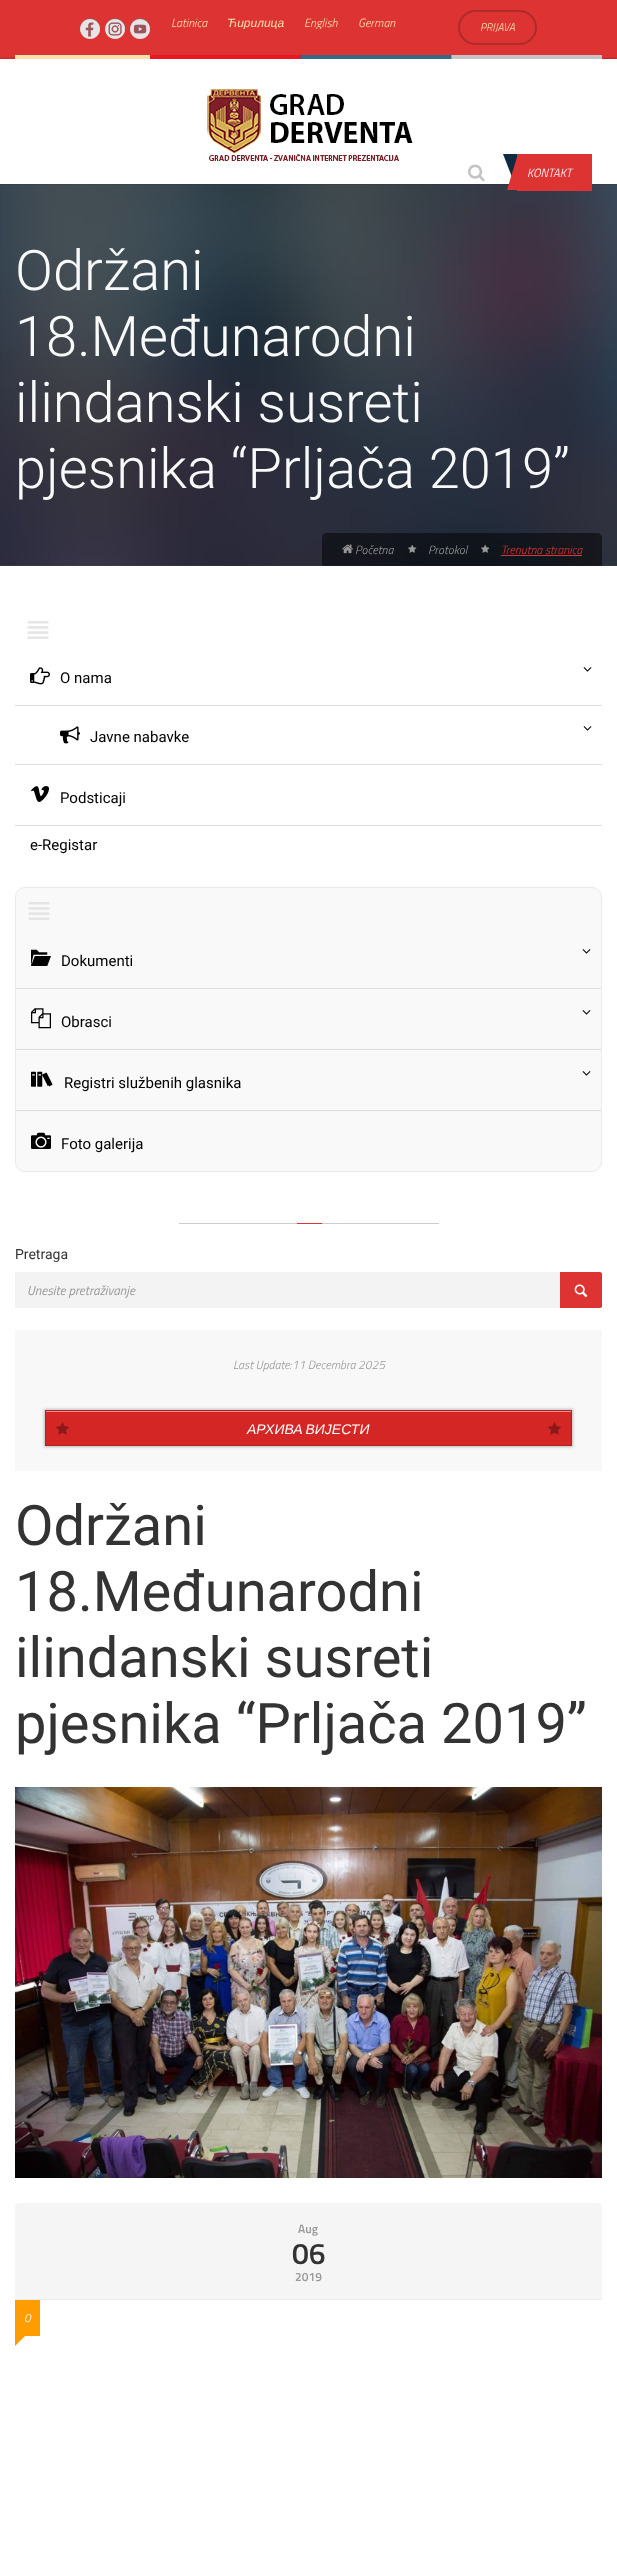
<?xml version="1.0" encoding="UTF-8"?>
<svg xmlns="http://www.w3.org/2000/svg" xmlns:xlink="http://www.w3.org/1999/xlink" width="617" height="2572">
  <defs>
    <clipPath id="clip1"><rect x="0" y="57" width="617" height="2" /></clipPath>
    <clipPath id="clip2"><rect x="158" y="17" width="244" height="12" /></clipPath>
  </defs>
  <rect width="100%" height="100%" fill="#ffffff" />
  <rect width="617" height="59" fill="#dd3333" />
  <circle cx="90" cy="28" r="10" fill="#9e545d" />
  <image x="80" y="19" width="20" height="20" xlink:href="image1.png" />
  <circle cx="115" cy="28" r="10" fill="#9e545d" />
  <image x="105" y="19" width="20" height="20" xlink:href="image2.png" />
  <circle cx="140" cy="28" r="10" fill="#9e545d" />
  <image x="130" y="19" width="20" height="20" xlink:href="image3.png" />
  <rect x="459" y="11" width="77" height="33" rx="16.5" fill="none" stroke="#ad2b2b" stroke-width="2" />
  <g clip-path="url(#clip1)">
    <rect y="59" width="617" height="124" fill="#000000" fill-opacity="0.3" filter="blur(1.5px)" />
  </g>
  <image x="15" y="55" width="587" height="4" xlink:href="image4.png" />
  <image x="202" y="89" width="211" height="72" xlink:href="image5.png" />
  <image x="468" y="164" width="17" height="18" xlink:href="image6.png" />
  <image x="0" y="184" width="617" height="382" xlink:href="image7.png" />
  <rect y="183" width="617" height="1" fill="#ffffff" />
  <rect x="517" y="154" width="75" height="37" fill="#dd3333" />
  <path d="M 517 154 v 36 l -14 -36 z" fill="#102b40" />
  <path d="M 517 157 v 33 h -10 z" fill="#dd3333" />
  <path d="M 327 533 h 270 c 3 0 5 2 5 5 v 28 h -280 v -28 c 0 -3 2 -5 5 -5 z" fill="#000000" fill-opacity="0.5" />
  <image x="342" y="544" width="11" height="10" xlink:href="image8.png" />
  <image x="408" y="544" width="9" height="9" xlink:href="image9.png" />
  <image x="481" y="544" width="9" height="9" xlink:href="image10.png" />
  <rect x="501" y="555" width="81" height="1" fill="#dd3333" />
  <image x="27" y="621" width="22" height="18" xlink:href="image11.png" />
  <rect x="15" y="705" width="587" height="1" fill="#dddddd" />
  <image x="30" y="667" width="20" height="18" xlink:href="image12.png" />
  <image x="583" y="667" width="9" height="5" xlink:href="image13.png" />
  <rect x="15" y="764" width="587" height="1" fill="#dddddd" />
  <image x="60" y="726" width="20" height="18" xlink:href="image14.png" />
  <image x="583" y="726" width="9" height="5" xlink:href="image13.png" />
  <rect x="15" y="825" width="587" height="1" fill="#dddddd" />
  <image x="31" y="786" width="18" height="16" xlink:href="image15.png" />
  <rect x="15.5" y="887.5" width="586" height="284" rx="9.5" fill="#f9f9f9" stroke="#eaeaea" />
  <image x="28" y="902" width="22" height="18" xlink:href="image16.png" />
  <rect x="16" y="988" width="585" height="1" fill="#dddddd" />
  <image x="31" y="949" width="20" height="17" xlink:href="image17.png" />
  <image x="582" y="949" width="9" height="5" xlink:href="image18.png" />
  <rect x="16" y="1049" width="585" height="1" fill="#dddddd" />
  <image x="31" y="1008" width="20" height="21" xlink:href="image19.png" />
  <image x="582" y="1010" width="9" height="5" xlink:href="image18.png" />
  <rect x="16" y="1110" width="585" height="1" fill="#dddddd" />
  <image x="31" y="1071" width="22" height="16" xlink:href="image20.png" />
  <image x="582" y="1071" width="9" height="5" xlink:href="image18.png" />
  <image x="31" y="1132" width="20" height="17" xlink:href="image21.png" />
  <rect x="179" y="1223" width="260" height="1" fill="#cccccc" />
  <rect x="297" y="1223" width="25" height="1" fill="#dd3333" />
  <rect x="15" y="1272" width="587" height="36" fill="#f3f3f3" />
  <path d="M 560 1272 h 40 c 1 0 2 1 2 2 v 32 c 0 1 -1 2 -2 2 h -40 z" fill="#dd3333" />
  <image x="574" y="1284" width="14" height="14" xlink:href="image22.png" />
  <rect x="15" y="1330" width="587" height="141" fill="#f8f8f8" />
  <rect x="44" y="1409" width="529" height="38" fill="#bbbbbb" filter="blur(1.5px)" />
  <rect x="46" y="1412" width="525" height="33" fill="#d42725" />
  <rect x="46" y="1411" width="525" height="1" fill="#ea9392" />
  <rect x="45.5" y="1410.5" width="526" height="35" fill="none" stroke="#b81f1d" />
  <image x="56" y="1422" width="13" height="13" xlink:href="image23.png" />
  <image x="548" y="1422" width="13" height="13" xlink:href="image23.png" />
  <image x="15" y="1787" width="587" height="391" xlink:href="image24.png" />
  <path d="M 19 2203 h 579 c 2 0 4 2 4 4 v 93 h -587 v -93 c 0 -2 2 -4 4 -4 z" fill="#f5f5f5" />
  <rect x="15" y="2299" width="587" height="1" fill="#ededed" />
  <rect x="15" y="2300" width="25" height="36" fill="#ff9c00" />
  <path d="M 15 2336 h 10 l -10 10 z" fill="#ff9c00" />
  <text x="171" y="27" style="font-family: Titillium Web; font-size: 12px; font-weight: 300; font-style: italic; fill: #f5e0ae">Latinica</text>
  <g clip-path="url(#clip2)">
    <text x="227" y="27" style="font-family: Liberation Sans; font-size: 12px; font-style: italic; fill: #f5e0ae">Ћирилица</text>
    <text x="304" y="27" style="font-family: Titillium Web; font-size: 12px; font-weight: 300; font-style: italic; fill: #f5e0ae">English</text>
  </g>
  <text x="358" y="27" style="font-family: Titillium Web; font-size: 12px; font-weight: 300; font-style: italic; fill: #f5e0ae">German</text>
  <text x="480" y="31" style="font-family: Titillium Web; font-size: 11px; font-weight: 300; font-style: italic; fill: #f5e0ae">PRIJAVA</text>
  <text x="527" y="177" style="font-family: Titillium Web; font-size: 12px; font-weight: 300; font-style: italic; fill: #ffffff">KONTAKT</text>
  <text x="15" y="290" style="font-family: Roboto; font-size: 56px; font-weight: 300; fill: #f8f9f9">Održani</text>
  <text x="15" y="356" style="font-family: Roboto; font-size: 56px; font-weight: 300; fill: #f8f9f9">18.Međunarodni</text>
  <text x="15" y="422" style="font-family: Roboto; font-size: 56px; font-weight: 300; fill: #f8f9f9">ilindanski susreti</text>
  <text x="15" y="488" style="font-family: Roboto; font-size: 56px; font-weight: 300; fill: #f8f9f9">pjesnika “Prljača 2019”</text>
  <text x="355" y="554" style="font-family: Titillium Web; font-size: 12px; font-weight: 300; font-style: italic; fill: #999999">Početna</text>
  <text x="428" y="554" style="font-family: Titillium Web; font-size: 12px; font-weight: 300; font-style: italic; fill: #999999">Protokol</text>
  <text x="501" y="554" style="font-family: Titillium Web; font-size: 12px; font-weight: 300; font-style: italic; fill: #dd3333">Trenutna stranica</text>
  <text x="60" y="683" style="font-family: Roboto; font-size: 15px; fill: #000000">O nama</text>
  <text x="90" y="742" style="font-family: Roboto; font-size: 15px; fill: #000000">Javne nabavke</text>
  <text x="60" y="803" style="font-family: Roboto; font-size: 15px; fill: #000000">Podsticaji</text>
  <text x="30" y="850" style="font-family: Roboto; font-size: 15px; fill: #000000">e-Registar</text>
  <text x="61" y="966" style="font-family: Roboto; font-size: 15px; fill: #000000">Dokumenti</text>
  <text x="61" y="1027" style="font-family: Roboto; font-size: 15px; fill: #000000">Obrasci</text>
  <text x="64" y="1088" style="font-family: Roboto; font-size: 15px; fill: #000000">Registri službenih glasnika</text>
  <text x="61" y="1149" style="font-family: Roboto; font-size: 15px; fill: #000000">Foto galerija</text>
  <text x="15" y="1259" style="font-family: Roboto; font-size: 14px; fill: #333333">Pretraga</text>
  <text x="27" y="1295" style="font-family: Titillium Web; font-size: 13px; font-style: italic; fill: #999999">Unesite pretraživanje</text>
  <text x="233" y="1369" style="font-family: Titillium Web; font-size: 12px; font-weight: 300; font-style: italic; fill: #999999">Last Update:11 Decembra 2025</text>
  <text x="247" y="1434" word-spacing="-1" style="font-family: Liberation Sans; font-size: 14px; font-style: italic; fill: #ffffff">АРХИВА ВИЈЕСТИ</text>
  <text x="15" y="1545" style="font-family: Roboto; font-size: 56px; fill: #333333">Održani</text>
  <text x="15" y="1611" style="font-family: Roboto; font-size: 56px; fill: #333333">18.Međunarodni</text>
  <text x="15" y="1677" style="font-family: Roboto; font-size: 56px; fill: #333333">ilindanski susreti</text>
  <text x="15" y="1743" style="font-family: Roboto; font-size: 56px; fill: #333333">pjesnika “Prljača 2019”</text>
  <text x="298" y="2233" style="font-family: Titillium Web; font-size: 12px; font-weight: 600; fill: #999999">Aug</text>
  <text x="292" y="2264" style="font-family: Titillium Web; font-size: 30px; font-weight: 600; fill: #333333">06</text>
  <text x="295" y="2281" style="font-family: Titillium Web; font-size: 12px; font-weight: 600; fill: #999999">2019</text>
  <text x="24" y="2322" style="font-family: Titillium Web; font-size: 12px; font-weight: 300; font-style: italic; fill: #ffffff">0</text>
</svg>
